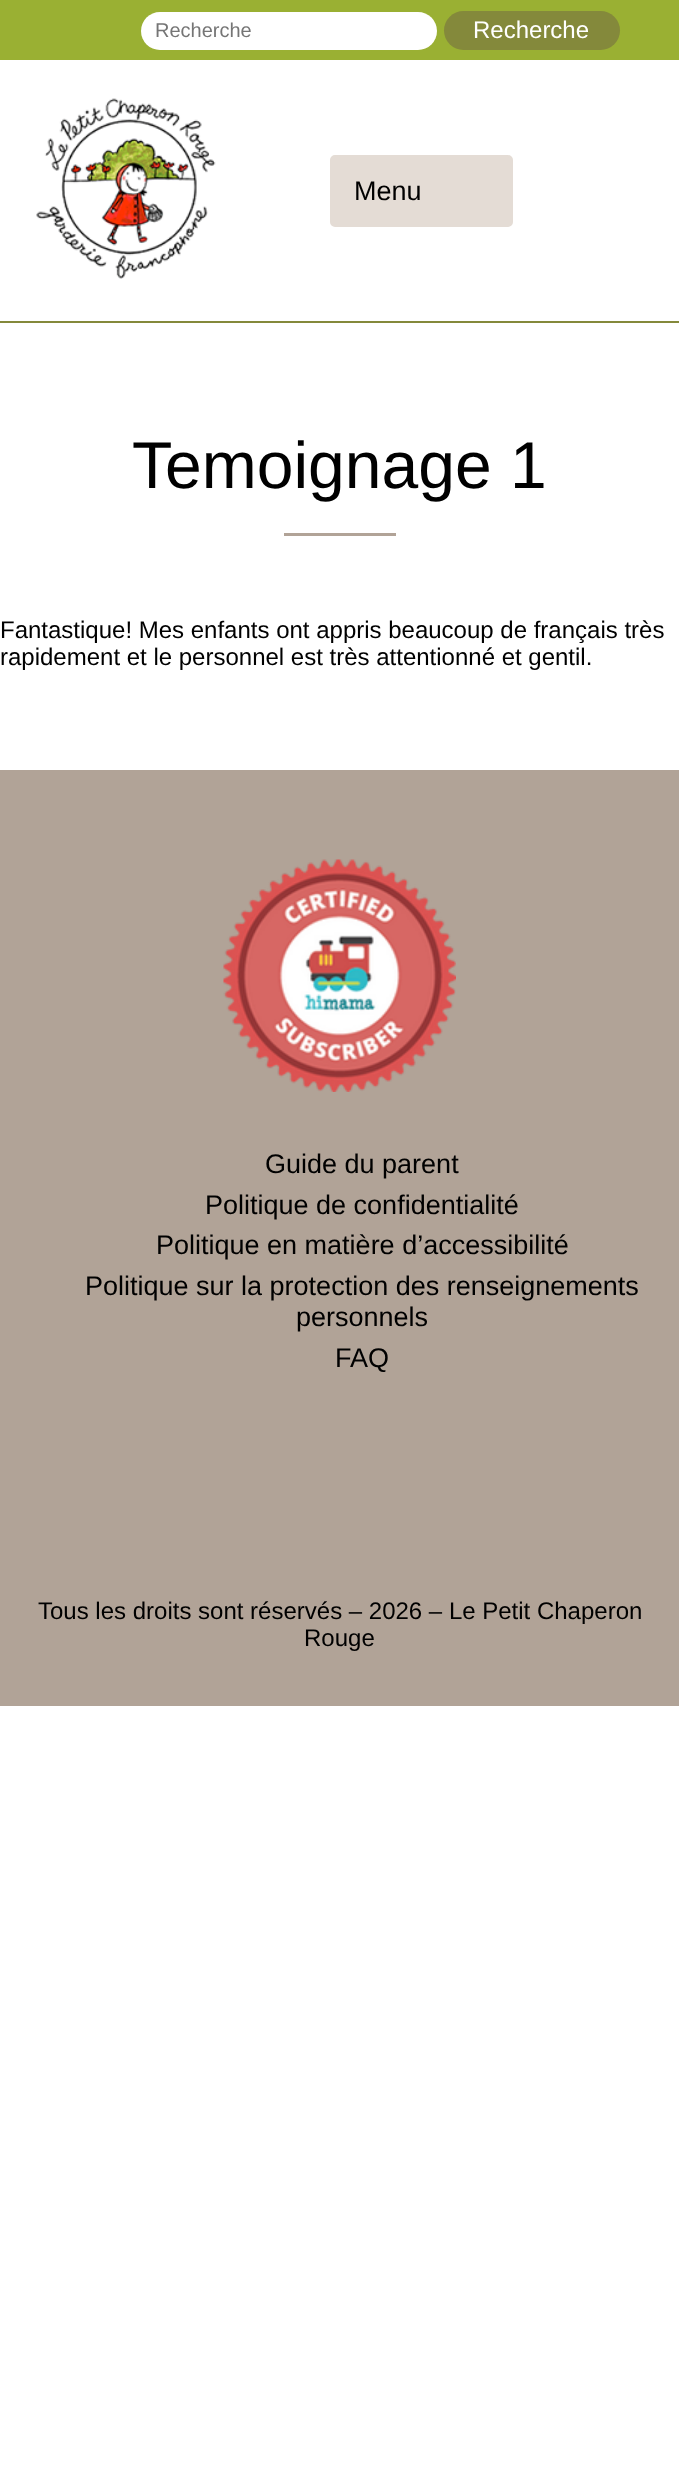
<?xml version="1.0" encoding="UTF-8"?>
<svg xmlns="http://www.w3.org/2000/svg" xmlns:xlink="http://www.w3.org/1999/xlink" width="679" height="2479">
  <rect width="100%" height="100%" fill="#ffffff" />
  <rect width="679" height="60" fill="#9ab033" />
  <rect x="141" y="12" width="296" height="38" rx="19" fill="#ffffff" />
  <rect x="444" y="11" width="176" height="39" rx="19.5" fill="#84893b" />
  <rect y="321" width="679" height="2" fill="#84893b" />
  <image x="36" y="98" width="180" height="181" xlink:href="image1.png" />
  <rect x="331" y="156" width="181" height="70" rx="4" fill="#e4dcd5" stroke="#e4dcd5" stroke-width="2" />
  <rect x="284" y="533" width="112" height="3" fill="#b1a397" />
  <rect y="770" width="679" height="936" fill="#b1a397" />
  <image x="223" y="859" width="233" height="233" xlink:href="image2.png" />
  <text x="155" y="37" style="font-family: Liberation Sans; font-size: 20px; fill: #757575">Recherche</text>
  <text x="473" y="38" style="font-family: Liberation Sans; font-size: 24px; fill: #ffffff">Recherche</text>
  <text x="354" y="200" style="font-family: Arimo; font-size: 27px; fill: #000000">Menu</text>
  <text x="132" y="488" style="font-family: Arimo; font-size: 66px; fill: #000000">Temoignage 1</text>
  <text x="0" y="638" style="font-family: Arimo; font-size: 24px; fill: #000000">Fantastique! Mes enfants ont appris beaucoup de français très</text>
  <text x="0" y="665" style="font-family: Arimo; font-size: 24px; fill: #000000">rapidement et le personnel est très attentionné et gentil.</text>
  <text x="265" y="1173" style="font-family: Arimo; font-size: 27px; fill: #000000">Guide du parent</text>
  <text x="205" y="1214" style="font-family: Arimo; font-size: 27px; fill: #000000">Politique de confidentialité</text>
  <text x="156" y="1254" style="font-family: Arimo; font-size: 27px; fill: #000000">Politique en matière d’accessibilité</text>
  <text x="85" y="1295" style="font-family: Arimo; font-size: 27px; fill: #000000">Politique sur la protection des renseignements</text>
  <text x="296" y="1326" style="font-family: Arimo; font-size: 27px; fill: #000000">personnels</text>
  <text x="335" y="1367" style="font-family: Arimo; font-size: 27px; fill: #000000">FAQ</text>
  <text x="38" y="1619" style="font-family: Arimo; font-size: 24px; fill: #000000">Tous les droits sont réservés – 2026 – Le Petit Chaperon</text>
  <text x="304" y="1646" style="font-family: Arimo; font-size: 24px; fill: #000000">Rouge</text>
</svg>
